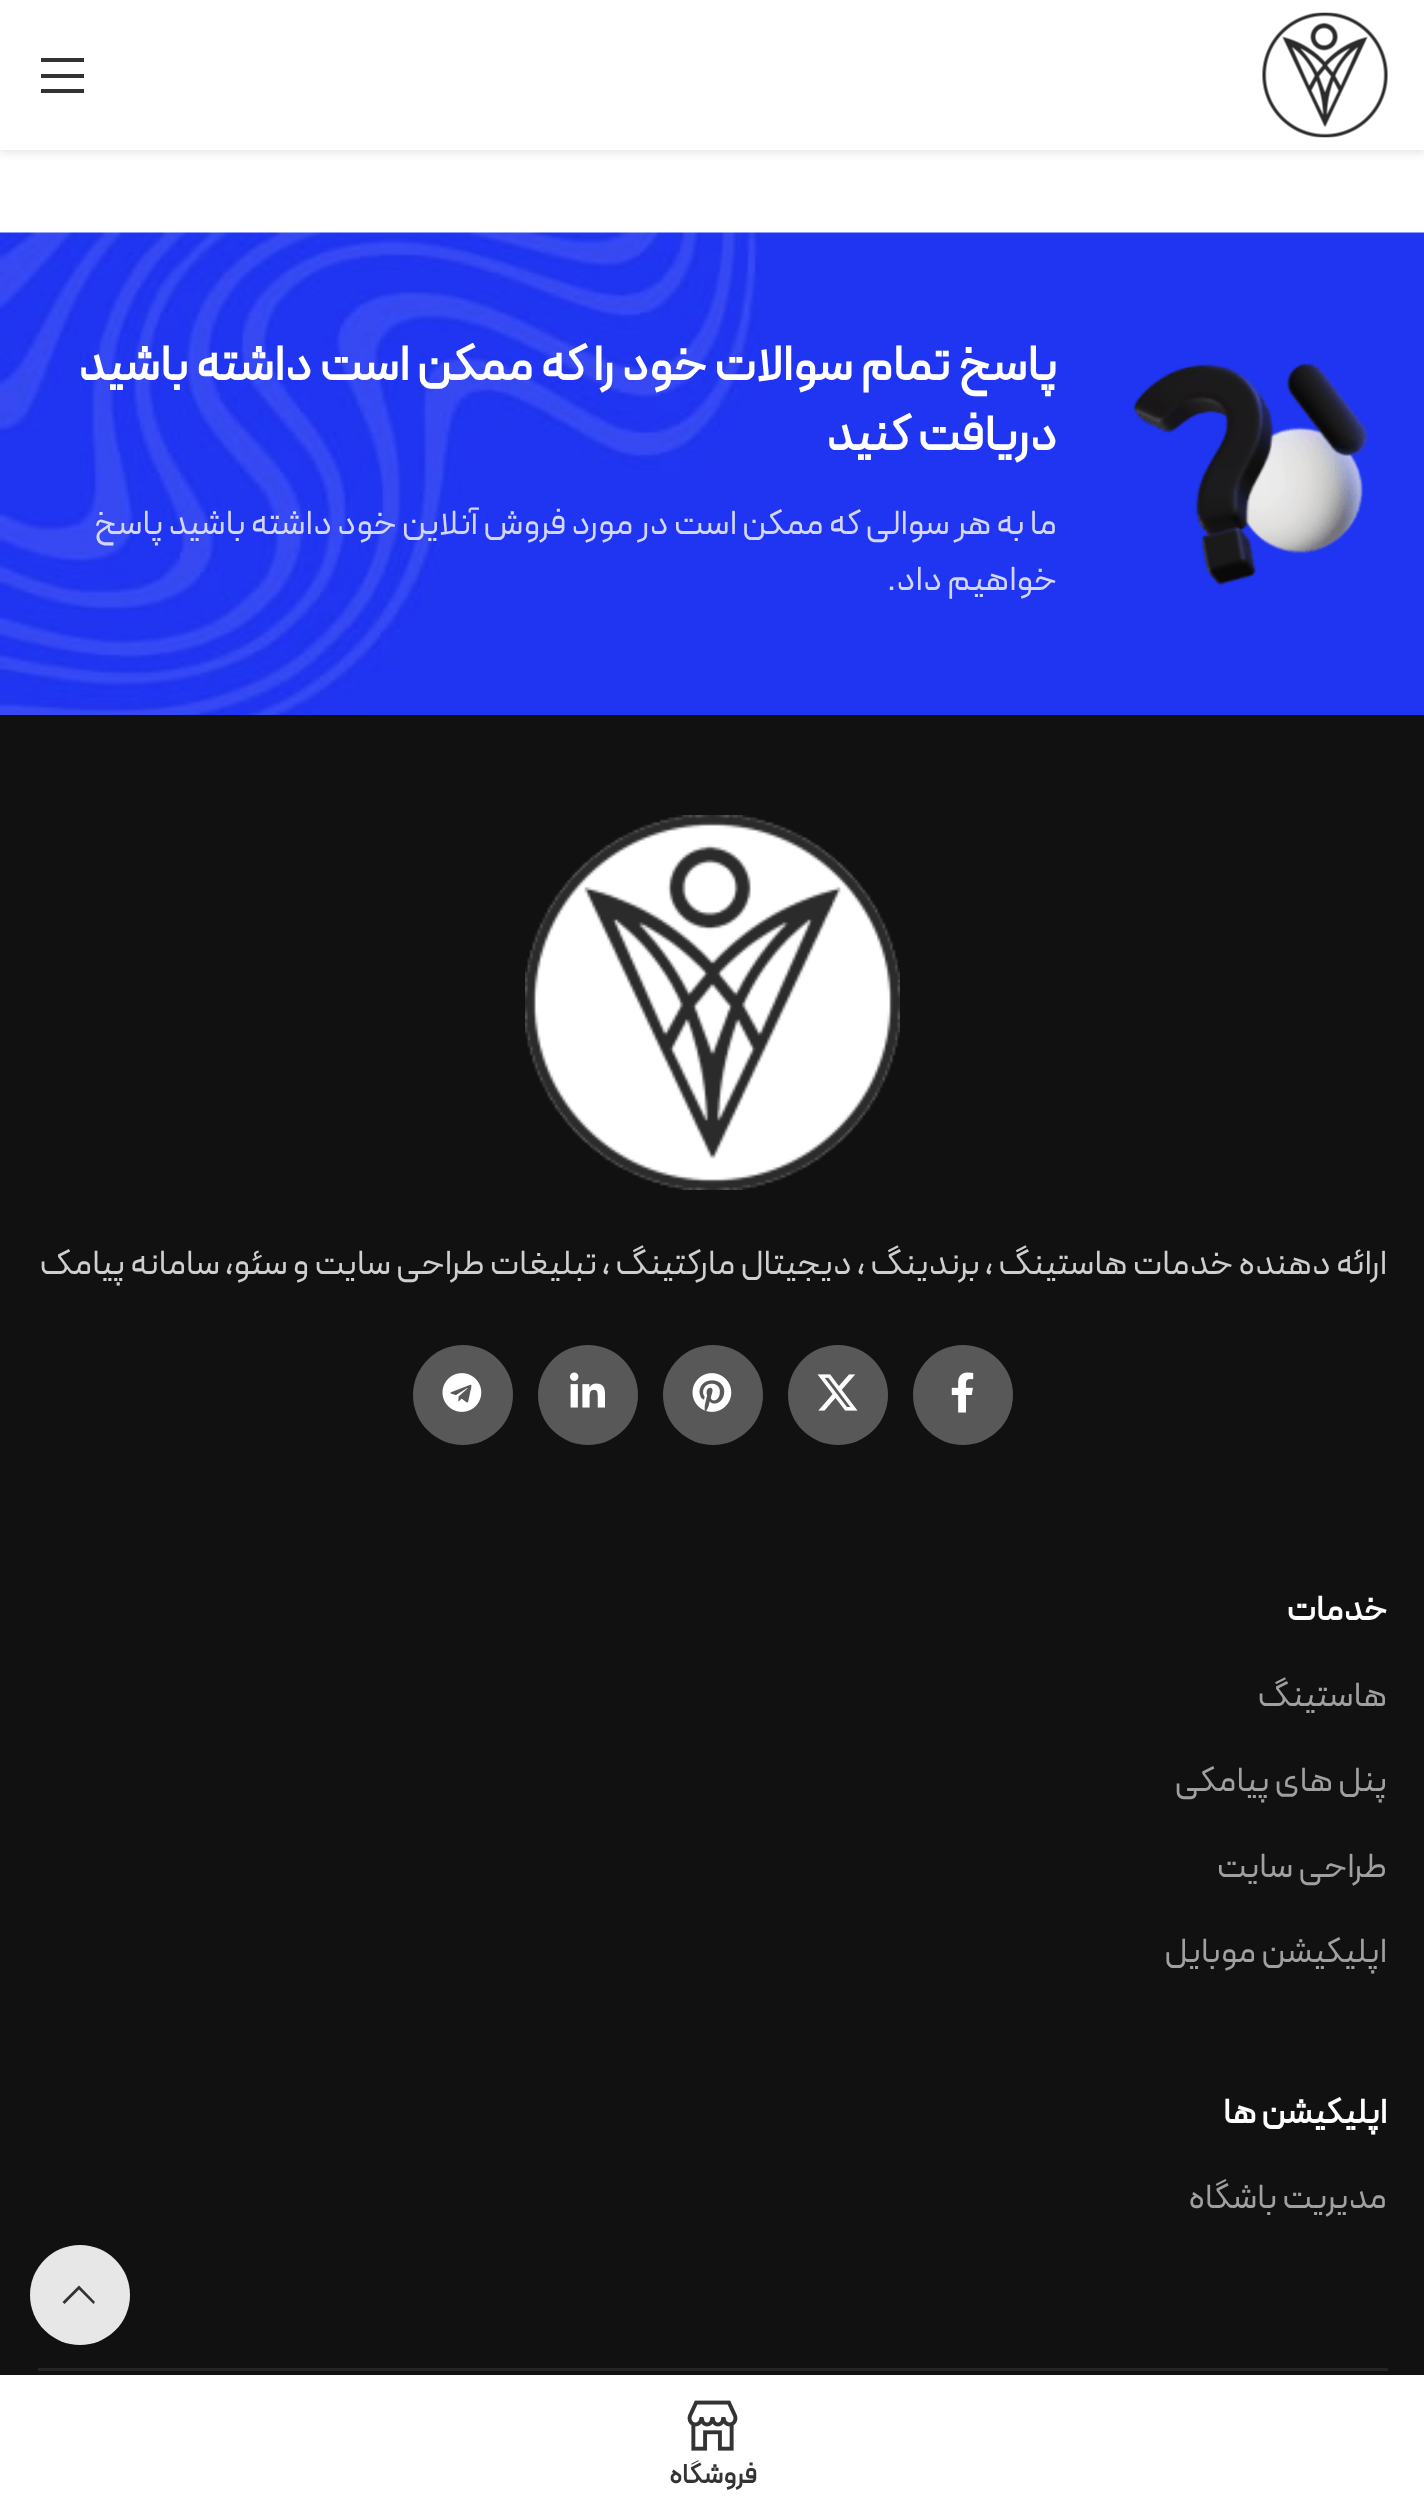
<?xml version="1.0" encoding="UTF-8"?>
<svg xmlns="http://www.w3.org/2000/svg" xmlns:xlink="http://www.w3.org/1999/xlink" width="1424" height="2512">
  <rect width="100%" height="100%" fill="#ffffff" />
  <rect y="3" width="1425" height="150" fill="#000000" fill-opacity="0.1" filter="blur(4px)" />
  <rect width="1424" height="150" fill="#ffffff" />
  <image x="1262" y="12" width="126" height="126" xlink:href="image1.png" />
  <path d="M 41 62 h 43 v -4 h -43 z m 0 16 h 43 v -4 h -43 z m 0 15 h 43 v -4 h -43 z" fill="#333333" />
  <image x="0" y="232" width="1424" height="483" xlink:href="image2.png" />
  <image x="1133" y="363" width="235" height="223" xlink:href="image3.png" />
  <rect y="715" width="1424" height="1660" fill="#111111" />
  <rect x="38" y="2368" width="1350" height="3" fill="#252525" />
  <image x="525" y="815" width="375" height="375" xlink:href="image4.png" />
  <circle cx="963" cy="1395" r="50" fill="#585858" />
  <image x="951" y="1372" width="23" height="41" xlink:href="image5.png" />
  <circle cx="838" cy="1395" r="50" fill="#585858" />
  <image x="817" y="1374" width="41" height="37" xlink:href="image6.png" />
  <circle cx="713" cy="1395" r="50" fill="#585858" />
  <image x="692" y="1373" width="40" height="39" xlink:href="image7.png" />
  <circle cx="588" cy="1395" r="50" fill="#585858" />
  <image x="570" y="1372" width="35" height="36" xlink:href="image8.png" />
  <circle cx="463" cy="1395" r="50" fill="#585858" />
  <image x="442" y="1373" width="40" height="39" xlink:href="image9.png" />
  <circle cx="80" cy="2295" r="50" fill="#e7e7e7" />
  <path d="M 93.5 2304 l 1.5 -2 l -16 -16.5 l -16.5 16.5 l 2 2 l 14.5 -14.5 z" fill="#333333" />
  <image x="687" y="2400" width="51" height="51" xlink:href="image10.png" />
  <text x="1057" y="380" style="font-family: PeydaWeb; font-size: 50px; font-weight: bold; direction: rtl; fill: #ffffff">پاسخ تمام سوالات خود را که ممکن است داشته باشید</text>
  <text x="1057" y="450" style="font-family: PeydaWeb; font-size: 50px; font-weight: bold; direction: rtl; fill: #ffffff">دریافت کنید</text>
  <text x="1057" y="534" style="font-family: PeydaWeb; font-size: 35px; direction: rtl; fill: #d3d7fc">ما به هر سوالی که ممکن است در مورد فروش آنلاین خود داشته باشید پاسخ</text>
  <text x="1057" y="590" style="font-family: PeydaWeb; font-size: 35px; direction: rtl; fill: #d3d7fc">خواهیم داد.</text>
  <text x="1387" y="1274" style="font-family: PeydaWeb; font-size: 35px; direction: rtl; fill: #cfcfcf">ارائه دهنده خدمات هاستینگ ، برندینگ ، دیجیتال مارکتینگ ، تبلیغات طراحی سایت و سئو، سامانه پیامک</text>
  <text x="1387" y="1620" style="font-family: PeydaWeb; font-size: 35px; font-weight: bold; direction: rtl; fill: #ffffff">خدمات</text>
  <text x="1387" y="1706" style="font-family: PeydaWeb; font-size: 35px; direction: rtl; fill: #a0a0a0">هاستینگ</text>
  <text x="1387" y="1791" style="font-family: PeydaWeb; font-size: 35px; direction: rtl; fill: #a0a0a0">پنل های پیامکی</text>
  <text x="1387" y="1877" style="font-family: PeydaWeb; font-size: 35px; direction: rtl; fill: #a0a0a0">طراحی سایت</text>
  <text x="1387" y="1962" style="font-family: PeydaWeb; font-size: 35px; direction: rtl; fill: #a0a0a0">اپلیکیشن موبایل</text>
  <text x="1387" y="2123" style="font-family: PeydaWeb; font-size: 35px; font-weight: bold; direction: rtl; fill: #ffffff">اپلیکیشن ها</text>
  <text x="1387" y="2208" style="font-family: PeydaWeb; font-size: 35px; direction: rtl; fill: #a0a0a0">مدیریت باشگاه</text>
  <text x="757" y="2483" style="font-family: PeydaWeb; font-size: 27.5px; font-weight: bold; direction: rtl; fill: #333333">فروشگاه</text>
</svg>
